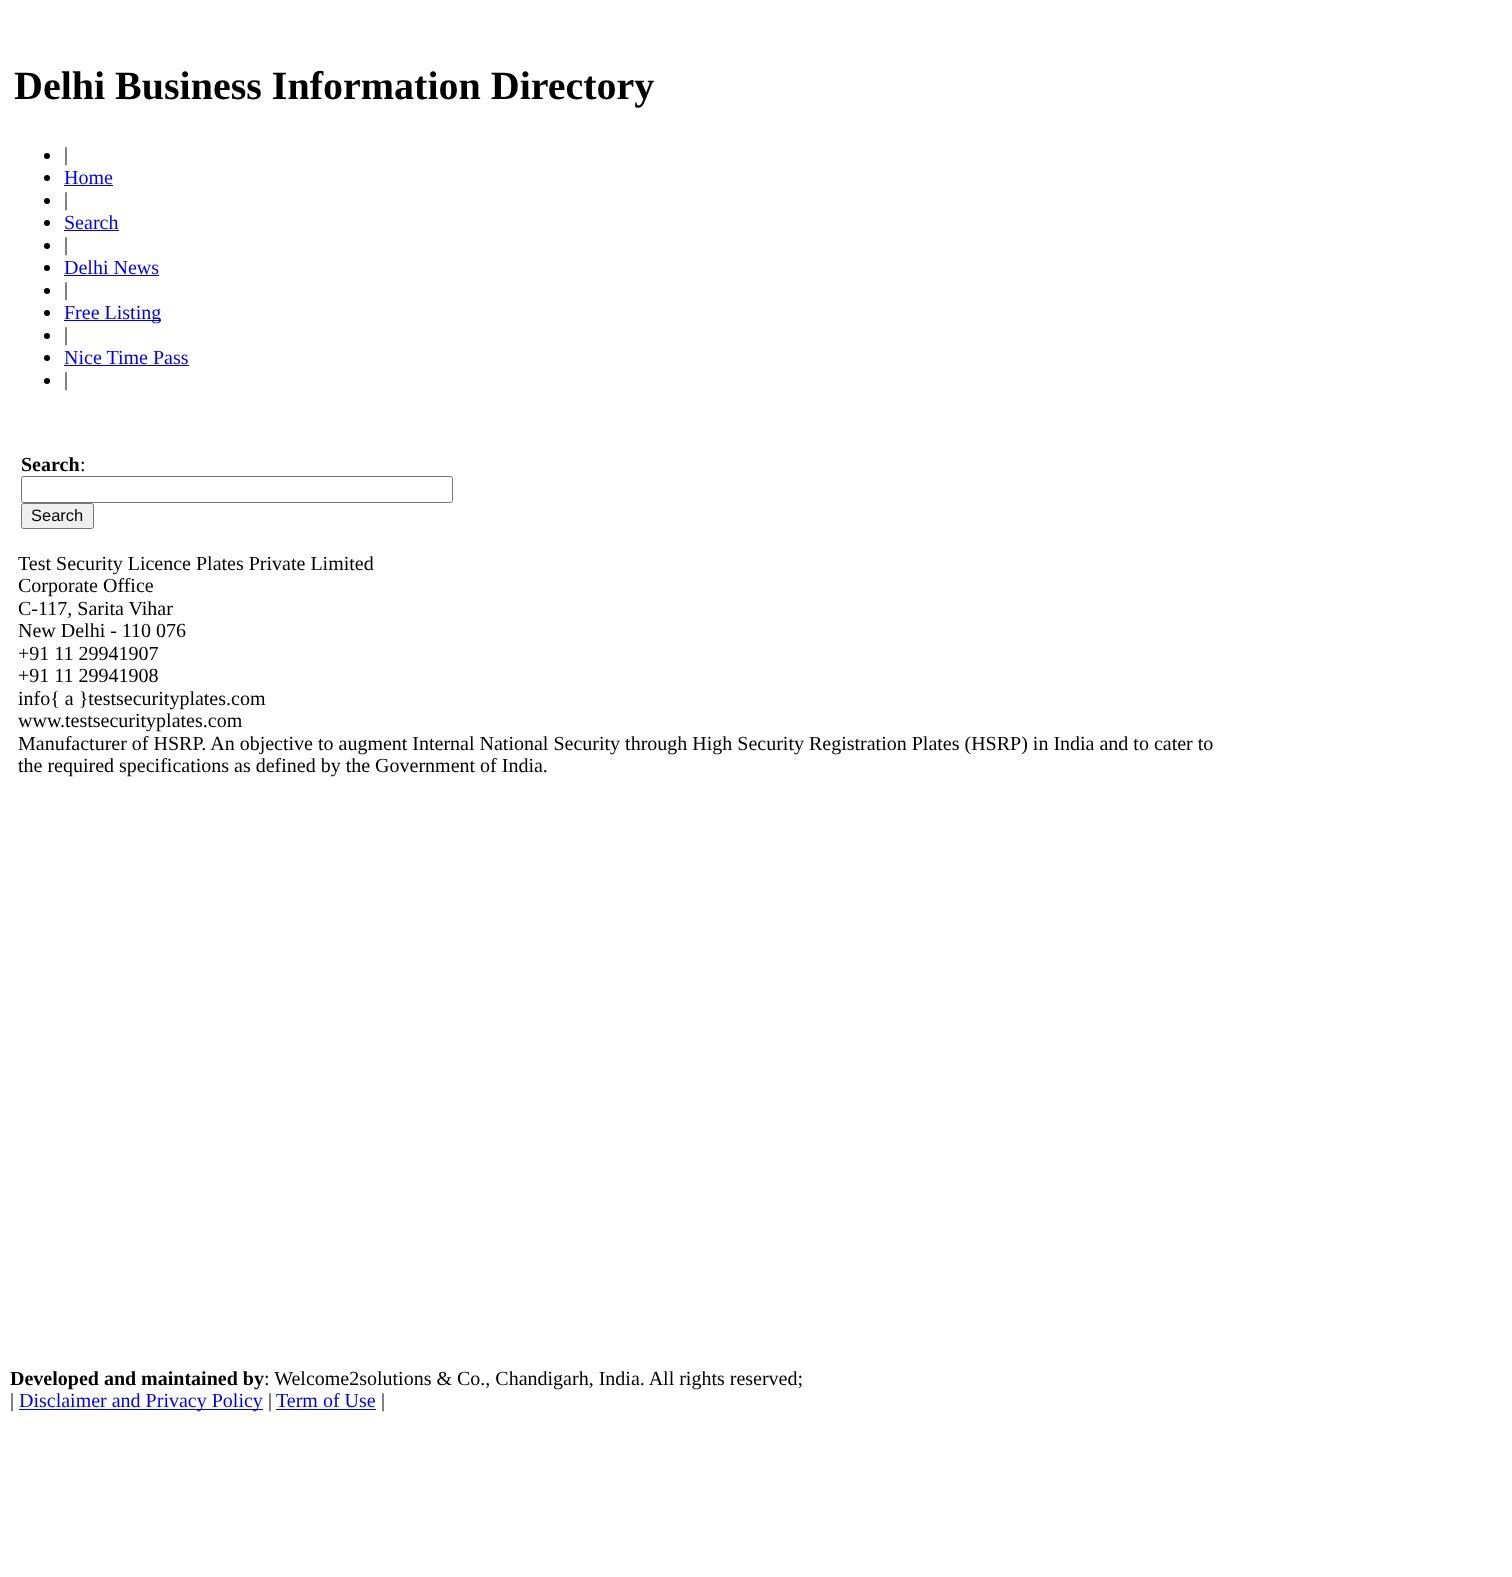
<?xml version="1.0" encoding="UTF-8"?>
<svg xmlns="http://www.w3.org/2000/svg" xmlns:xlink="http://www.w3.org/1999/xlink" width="1512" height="1577">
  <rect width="100%" height="100%" fill="#ffffff" />
  <circle cx="47" cy="156" r="3" fill="#000000" />
  <circle cx="47" cy="178" r="3" fill="#000000" />
  <rect x="64" y="185" width="49" height="1" fill="#0000ee" />
  <circle cx="47" cy="201" r="3" fill="#000000" />
  <circle cx="47" cy="223" r="3" fill="#000000" />
  <rect x="64" y="230" width="55" height="1" fill="#0000ee" />
  <circle cx="47" cy="246" r="3" fill="#000000" />
  <circle cx="47" cy="268" r="3" fill="#000000" />
  <rect x="64" y="275" width="95" height="1" fill="#0000ee" />
  <circle cx="47" cy="291" r="3" fill="#000000" />
  <circle cx="47" cy="313" r="3" fill="#000000" />
  <rect x="64" y="320" width="97" height="1" fill="#0000ee" />
  <circle cx="47" cy="336" r="3" fill="#000000" />
  <circle cx="47" cy="358" r="3" fill="#000000" />
  <rect x="64" y="365" width="125" height="1" fill="#0000ee" />
  <circle cx="47" cy="381" r="3" fill="#000000" />
  <rect x="21.5" y="476.5" width="431" height="26" rx="2" fill="none" stroke="#767676" />
  <rect x="21.5" y="503.5" width="72" height="25" rx="2" fill="#efefef" stroke="#767676" />
  <rect x="19" y="1409" width="244" height="1" fill="#0000ee" />
  <rect x="276" y="1409" width="100" height="1" fill="#0000ee" />
  <text x="14" y="99" style="font-family: Liberation Serif; font-size: 40px; font-weight: bold; fill: #000000">Delhi Business Information Directory</text>
  <text x="64" y="161" style="font-family: Liberation Serif; font-size: 20px; fill: #000000">|</text>
  <text x="64" y="184" style="font-family: Liberation Serif; font-size: 20px; fill: #0000ee">Home</text>
  <text x="64" y="206" style="font-family: Liberation Serif; font-size: 20px; fill: #000000">|</text>
  <text x="64" y="229" style="font-family: Liberation Serif; font-size: 20px; fill: #0000ee">Search</text>
  <text x="64" y="251" style="font-family: Liberation Serif; font-size: 20px; fill: #000000">|</text>
  <text x="64" y="274" style="font-family: Liberation Serif; font-size: 20px; fill: #0000ee">Delhi News</text>
  <text x="64" y="296" style="font-family: Liberation Serif; font-size: 20px; fill: #000000">|</text>
  <text x="64" y="319" style="font-family: Liberation Serif; font-size: 20px; fill: #0000ee">Free Listing</text>
  <text x="64" y="341" style="font-family: Liberation Serif; font-size: 20px; fill: #000000">|</text>
  <text x="64" y="364" style="font-family: Liberation Serif; font-size: 20px; fill: #0000ee">Nice Time Pass</text>
  <text x="64" y="386" style="font-family: Liberation Serif; font-size: 20px; fill: #000000">|</text>
  <text x="21" y="471" style="font-family: Liberation Serif; font-size: 20px; font-weight: bold; fill: #000000">Search</text>
  <text x="80" y="471" style="font-family: Liberation Serif; font-size: 20px; fill: #000000">:</text>
  <text x="31" y="521" style="font-family: Liberation Sans; font-size: 16.5px; fill: #000000">Search</text>
  <text x="18" y="570" style="font-family: Liberation Serif; font-size: 20px; fill: #000000">Test Security Licence Plates Private Limited</text>
  <text x="18" y="592" style="font-family: Liberation Serif; font-size: 20px; fill: #000000">Corporate Office</text>
  <text x="18" y="615" style="font-family: Liberation Serif; font-size: 20px; fill: #000000">C-117, Sarita Vihar</text>
  <text x="18" y="637" style="font-family: Liberation Serif; font-size: 20px; fill: #000000">New Delhi - 110 076</text>
  <text x="18" y="660" style="font-family: Liberation Serif; font-size: 20px; fill: #000000">+91 11 29941907</text>
  <text x="18" y="682" style="font-family: Liberation Serif; font-size: 20px; fill: #000000">+91 11 29941908</text>
  <text x="18" y="705" style="font-family: Liberation Serif; font-size: 20px; fill: #000000">info{ a }testsecurityplates.com</text>
  <text x="18" y="727" style="font-family: Liberation Serif; font-size: 20px; fill: #000000">www.testsecurityplates.com</text>
  <text x="18" y="750" style="font-family: Liberation Serif; font-size: 20px; fill: #000000">Manufacturer of HSRP. An objective to augment Internal National Security through High Security Registration Plates (HSRP) in India and to cater to</text>
  <text x="18" y="772" style="font-family: Liberation Serif; font-size: 20px; fill: #000000">the required specifications as defined by the Government of India.</text>
  <text x="10" y="1385" style="font-family: Liberation Serif; font-size: 20px; font-weight: bold; fill: #000000">Developed and maintained by</text>
  <text x="264" y="1385" style="font-family: Liberation Serif; font-size: 20px; fill: #000000">: Welcome2solutions &amp; Co., Chandigarh, India. All rights reserved;</text>
  <text x="10" y="1407" style="font-family: Liberation Serif; font-size: 20px; fill: #000000">|</text>
  <text x="19" y="1407" style="font-family: Liberation Serif; font-size: 20px; fill: #0000ee">Disclaimer and Privacy Policy</text>
  <text x="268" y="1407" style="font-family: Liberation Serif; font-size: 20px; fill: #000000">|</text>
  <text x="276" y="1407" style="font-family: Liberation Serif; font-size: 20px; fill: #0000ee">Term of Use</text>
  <text x="381" y="1407" style="font-family: Liberation Serif; font-size: 20px; fill: #000000">|</text>
</svg>
